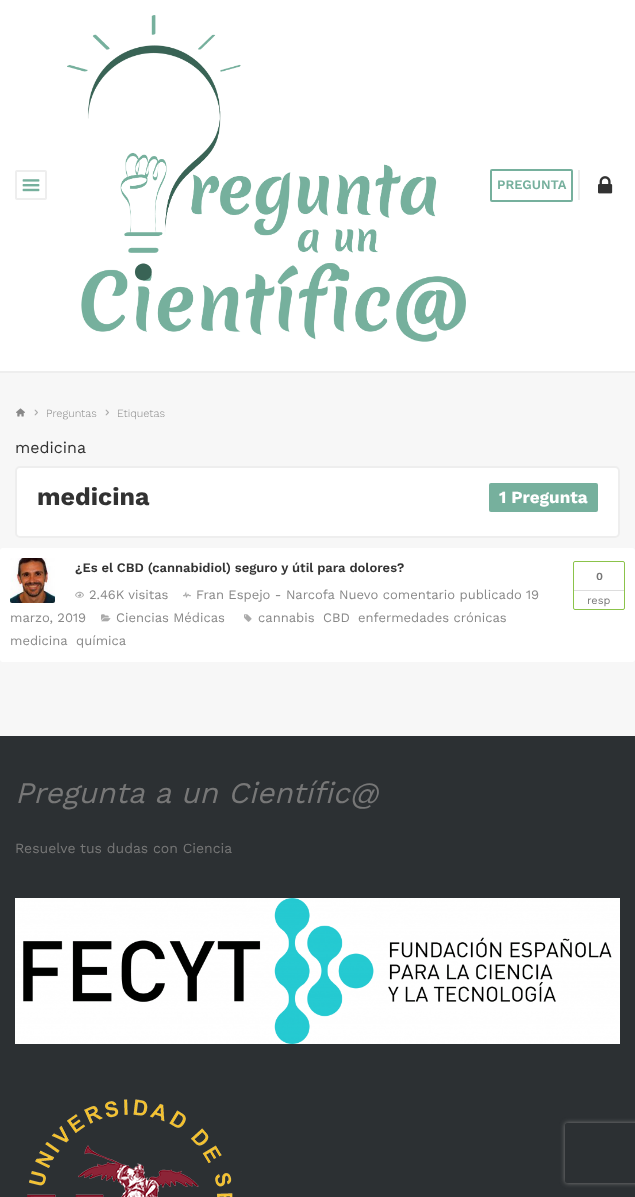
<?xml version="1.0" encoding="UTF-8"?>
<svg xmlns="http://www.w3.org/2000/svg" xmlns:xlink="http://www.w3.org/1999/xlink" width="635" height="1197">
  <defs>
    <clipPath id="clip1"><path d="M 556 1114 h 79 v 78 h -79 z m 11 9 h 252 c 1 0 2 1 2 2 v 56 c 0 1 -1 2 -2 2 h -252 c -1 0 -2 -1 -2 -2 v -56 c 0 -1 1 -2 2 -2 z" clip-rule="evenodd" /></clipPath>
  </defs>
  <rect width="100%" height="100%" fill="#f7f7f7" />
  <rect width="635" height="371" fill="#ffffff" />
  <rect y="371" width="635" height="2" fill="#eeeeee" />
  <rect x="16" y="171" width="30" height="28" rx="1" fill="none" stroke="#eeeeee" stroke-width="2" />
  <image x="22" y="179" width="18" height="13" xlink:href="image1.png" />
  <image x="67" y="15" width="399" height="327" xlink:href="image2.png" />
  <rect x="491" y="170" width="81" height="31" rx="1" fill="none" stroke="#76b09d" stroke-width="2" />
  <rect x="578" y="170" width="2" height="30" fill="#eeeeee" />
  <image x="598" y="176" width="15" height="18" xlink:href="image3.png" />
  <image x="16" y="408" width="9" height="9" xlink:href="image4.png" />
  <image x="34" y="409" width="4" height="7" xlink:href="image5.png" />
  <image x="105" y="409" width="4" height="7" xlink:href="image5.png" />
  <rect x="16" y="467" width="603" height="70" rx="4" fill="#ffffff" stroke="#eeeeee" stroke-width="2" />
  <rect x="489" y="483" width="109" height="29" rx="2" fill="#76b09d" />
  <rect y="548" width="635" height="114" rx="3" fill="#ffffff" />
  <image x="10" y="558" width="45" height="45" xlink:href="image6.png" />
  <image x="75" y="591" width="9" height="7" xlink:href="image7.png" />
  <image x="183" y="591" width="8" height="7" xlink:href="image8.png" />
  <image x="101" y="614" width="10" height="8" xlink:href="image9.png" />
  <image x="244" y="614" width="8" height="8" xlink:href="image10.png" />
  <rect x="573.5" y="561.5" width="51" height="48" rx="1.5" fill="none" stroke="#8bc34a" />
  <rect x="574" y="590" width="50" height="1" fill="#dddddd" />
  <rect y="736" width="635" height="461" fill="#2c3033" />
  <image x="15" y="898" width="605" height="146" xlink:href="image11.png" />
  <image x="27" y="1099" width="206" height="98" xlink:href="image12.png" />
  <g clip-path="url(#clip1)">
    <rect x="565" y="1123" width="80" height="60" rx="2" fill="#808080" filter="blur(2.5px)" />
  </g>
  <text x="497" y="189" style="font-family: Work Sans; font-size: 13px; font-weight: 600; fill: #76b09d">PREGUNTA</text>
  <text x="46" y="417" style="font-family: Work Sans; font-size: 11px; font-weight: 300; fill: #888888">Preguntas</text>
  <text x="117" y="417" style="font-family: Work Sans; font-size: 11px; font-weight: 300; fill: #888888">Etiquetas</text>
  <text x="15" y="453" style="font-family: Work Sans; font-size: 16px; fill: #323232">medicina</text>
  <text x="37" y="505" style="font-family: Work Sans; font-size: 25px; font-weight: bold; fill: #323232">medicina</text>
  <text x="499" y="503" style="font-family: Work Sans; font-size: 17px; font-weight: bold; fill: #ffffff">1 Pregunta</text>
  <text x="75" y="572" style="font-family: Work Sans; font-size: 13px; font-weight: 600; fill: #323232">¿Es el CBD (cannabidiol) seguro y útil para dolores?</text>
  <text x="89" y="599" style="font-family: Work Sans; font-size: 13px; fill: #888888">2.46K visitas</text>
  <text x="196" y="599" style="font-family: Work Sans; font-size: 13px; fill: #888888">Fran Espejo - Narcofa Nuevo comentario publicado 19</text>
  <text x="10" y="622" style="font-family: Work Sans; font-size: 13px; fill: #888888">marzo, 2019</text>
  <text x="116" y="622" style="font-family: Work Sans; font-size: 13px; fill: #888888">Ciencias Médicas</text>
  <text x="258" y="622" style="font-family: Work Sans; font-size: 13px; fill: #888888">cannabis</text>
  <text x="323" y="622" style="font-family: Work Sans; font-size: 13px; fill: #888888">CBD</text>
  <text x="358" y="622" style="font-family: Work Sans; font-size: 13px; fill: #888888">enfermedades crónicas</text>
  <text x="10" y="645" style="font-family: Work Sans; font-size: 13px; fill: #888888">medicina</text>
  <text x="76" y="645" style="font-family: Work Sans; font-size: 13px; fill: #888888">química</text>
  <text x="596" y="580" style="font-family: Work Sans; font-size: 11px; font-weight: 600; fill: #777777">0</text>
  <text x="587" y="604" style="font-family: Work Sans; font-size: 11px; fill: #777777">resp</text>
  <text x="15" y="803" style="font-family: Work Sans; font-size: 30px; font-style: italic; fill: #777777">Pregunta a un Científic@</text>
  <text x="15" y="853" style="font-family: Work Sans; font-size: 14px; fill: #777777">Resuelve tus dudas con Ciencia</text>
</svg>
